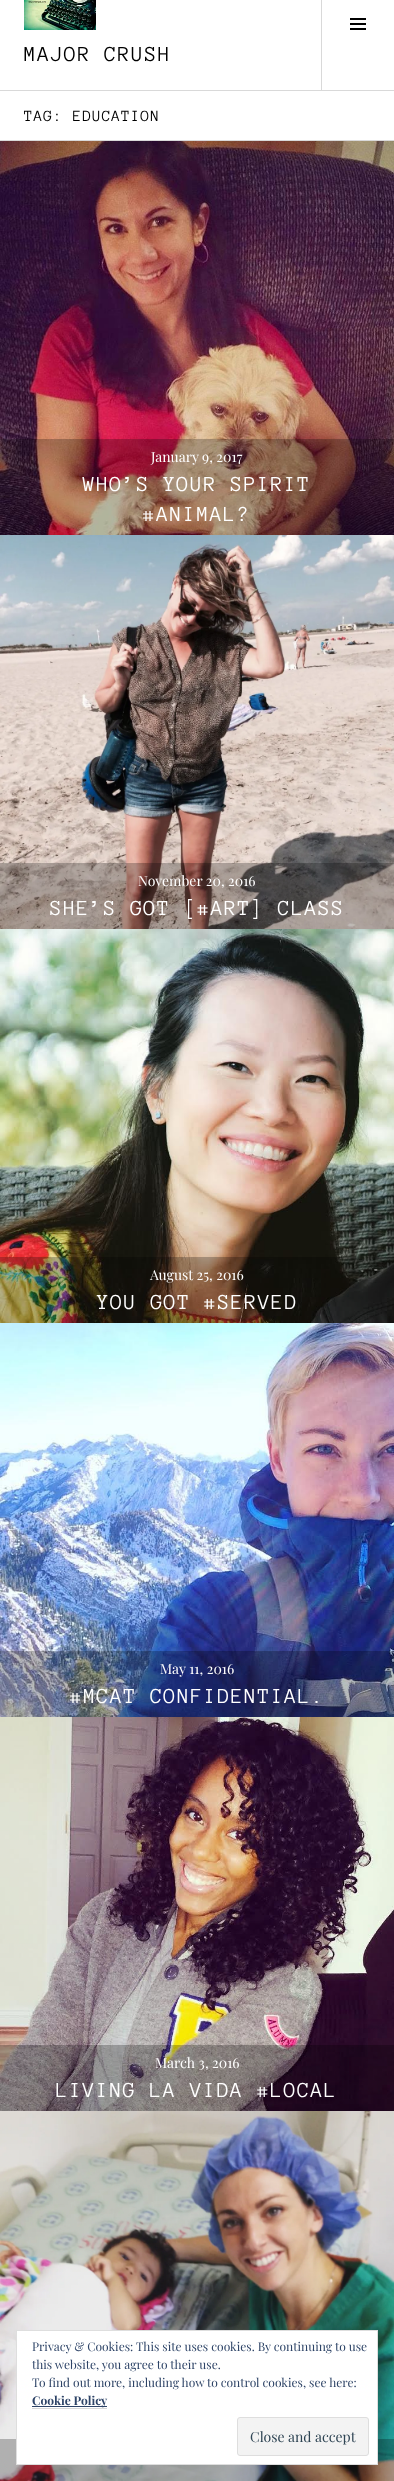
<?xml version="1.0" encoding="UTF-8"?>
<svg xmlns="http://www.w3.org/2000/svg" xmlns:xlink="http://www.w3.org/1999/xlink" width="394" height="2481">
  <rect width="100%" height="100%" fill="#ffffff" />
  <rect y="90" width="394" height="1" fill="#d9d9d9" />
  <image x="24" y="0" width="72" height="30" xlink:href="image1.png" />
  <rect x="321" width="1" height="90" fill="#d9d9d9" />
  <image x="350" y="18" width="16" height="12" xlink:href="image2.png" />
  <rect y="140" width="394" height="1" fill="#d9d9d9" />
  <image x="0" y="141" width="394" height="394" xlink:href="image3.png" />
  <rect y="439" width="394" height="96" fill="#000000" fill-opacity="0.25" />
  <image x="0" y="535" width="394" height="394" xlink:href="image4.png" />
  <rect y="863" width="394" height="66" fill="#000000" fill-opacity="0.25" />
  <image x="0" y="929" width="394" height="394" xlink:href="image5.png" />
  <rect y="1257" width="394" height="66" fill="#000000" fill-opacity="0.25" />
  <image x="0" y="1323" width="394" height="394" xlink:href="image6.png" />
  <rect y="1651" width="394" height="66" fill="#000000" fill-opacity="0.25" />
  <image x="0" y="1717" width="394" height="394" xlink:href="image7.png" />
  <rect y="2045" width="394" height="66" fill="#000000" fill-opacity="0.25" />
  <image x="0" y="2111" width="394" height="370" xlink:href="image8.png" />
  <rect y="2439" width="394" height="42" fill="#000000" fill-opacity="0.25" />
  <rect x="16.5" y="2330.5" width="361" height="134" fill="#ffffff" stroke="#dedede" />
  <rect x="32" y="2408" width="75" height="1" fill="#d9d9d9" />
  <rect x="32" y="2406" width="75" height="1" fill="#2e4467" />
  <rect x="237.5" y="2417.5" width="131" height="38" rx="2.5" fill="#f3f3f3" stroke="#dedede" />
  <text x="24" y="61" style="font-family: Anonymous Pro; font-size: 22px; letter-spacing: 1.4px; fill: #000000">MAJOR CRUSH</text>
  <text x="24" y="121" style="font-family: Anonymous Pro; font-size: 16px; letter-spacing: 1px; fill: #000000">TAG: EDUCATION</text>
  <text x="151" y="462" style="font-family: Playfair Display; font-size: 14px; fill: #ffffff">January 9, 2017</text>
  <text x="83" y="491" style="font-family: Anonymous Pro; font-size: 22px; letter-spacing: 1.4px; fill: #ffffff">WHO’S YOUR SPIRIT</text>
  <text x="143" y="521" style="font-family: Anonymous Pro; font-size: 22px; letter-spacing: 1.4px; fill: #ffffff">#ANIMAL?</text>
  <text x="138" y="886" style="font-family: Playfair Display; font-size: 14px; fill: #ffffff">November 20, 2016</text>
  <text x="50" y="915" style="font-family: Anonymous Pro; font-size: 22px; letter-spacing: 1.4px; fill: #ffffff">SHE’S GOT [#ART] CLASS</text>
  <text x="150" y="1280" style="font-family: Playfair Display; font-size: 14px; fill: #ffffff">August 25, 2016</text>
  <text x="97" y="1309" style="font-family: Anonymous Pro; font-size: 22px; letter-spacing: 1.4px; fill: #ffffff">YOU GOT #SERVED</text>
  <text x="160" y="1674" style="font-family: Playfair Display; font-size: 14px; fill: #ffffff">May 11, 2016</text>
  <text x="70" y="1703" style="font-family: Anonymous Pro; font-size: 22px; letter-spacing: 1.4px; fill: #ffffff">#MCAT CONFIDENTIAL.</text>
  <text x="155" y="2068" style="font-family: Playfair Display; font-size: 14px; fill: #ffffff">March 3, 2016</text>
  <text x="56" y="2097" style="font-family: Anonymous Pro; font-size: 22px; letter-spacing: 1.4px; fill: #ffffff">LIVING LA VIDA #LOCAL</text>
  <text x="32" y="2351" style="font-family: Playfair Display; font-size: 12px; fill: #2e4467">Privacy &amp; Cookies: This site uses cookies. By continuing to use</text>
  <text x="32" y="2369" style="font-family: Playfair Display; font-size: 12px; fill: #2e4467">this website, you agree to their use.</text>
  <text x="32" y="2387" style="font-family: Playfair Display; font-size: 12px; fill: #2e4467">To find out more, including how to control cookies, see here:</text>
  <text x="32" y="2405" style="font-family: Playfair Display; font-size: 12px; font-weight: bold; fill: #2e4467">Cookie Policy</text>
  <text x="250" y="2442" style="font-family: Playfair Display; font-size: 14px; fill: #2e4453">Close and accept</text>
</svg>
